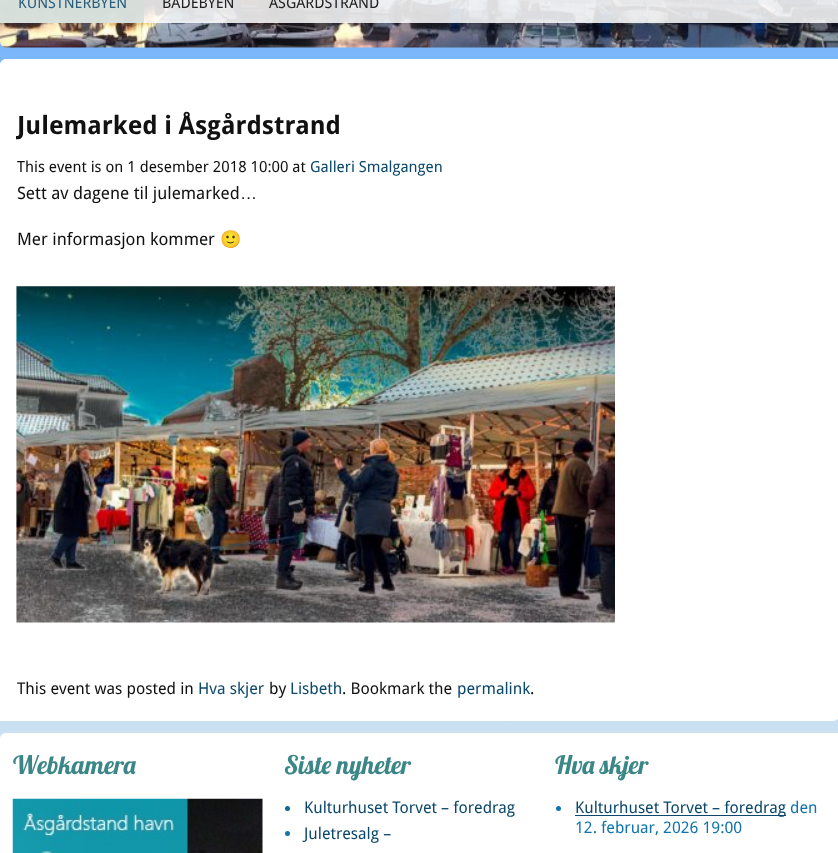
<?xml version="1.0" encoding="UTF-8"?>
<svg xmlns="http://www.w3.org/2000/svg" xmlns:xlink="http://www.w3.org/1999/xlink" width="838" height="853">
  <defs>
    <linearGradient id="g1" gradientUnits="userSpaceOnUse" x1="0" y1="0" x2="0" y2="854"><stop offset="0" stop-color="#74b3f9" /><stop offset="1" stop-color="#d8e8f2" /></linearGradient>
    <clipPath id="clip1"><rect x="16" y="75" width="807" height="108" /></clipPath>
    <clipPath id="clip2"><rect x="13" y="745" width="265" height="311" /></clipPath>
  </defs>
  <rect width="100%" height="100%" fill="#ffffff" />
  <rect y="42" width="838" height="697" fill="url(#g1)" />
  <image x="0" y="0" width="838" height="48" xlink:href="image1.png" />
  <rect width="838" height="23" fill="#ffffff" fill-opacity="0.85" />
  <rect width="144" height="23" fill="#d5ded9" fill-opacity="0.85" />
  <path d="M 6 59 h 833 v 656 c 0 3.5 -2.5 6 -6 6 h -833 v -656 c 0 -3.5 2.5 -6 6 -6 z" fill="#ffffff" />
  <image x="16" y="286" width="599" height="337" xlink:href="image2.png" />
  <path d="M 6 733 h 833 v 120 c 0 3.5 -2.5 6 -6 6 h -827 c -3.5 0 -6 -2.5 -6 -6 v -114 c 0 -3.5 2.5 -6 6 -6 z" fill="#ffffff" />
  <image x="12" y="798" width="251" height="55" xlink:href="image3.png" />
  <circle cx="287.5" cy="808.5" r="2.5" fill="#106697" />
  <circle cx="287.5" cy="833.5" r="2.5" fill="#1274ad" />
  <circle cx="558.5" cy="808.5" r="2.5" fill="#1274ad" />
  <rect x="575" y="815" width="211" height="1" fill="#0b486b" />
  <text x="18" y="8" style="font-family: Droid Sans; font-size: 15px; fill: #2a5e7c">KUNSTNERBYEN</text>
  <text x="162" y="8" style="font-family: Droid Sans; font-size: 15px; fill: #222223">BADEBYEN</text>
  <text x="269" y="8" style="font-family: Droid Sans; font-size: 15px; fill: #222223">ÅSGÅRDSTRAND</text>
  <g clip-path="url(#clip1)">
    <text x="17" y="134" style="font-family: Droid Sans; font-size: 25.25px; font-weight: bold; fill: #111111">Julemarked i Åsgårdstrand</text>
  </g>
  <text x="17" y="172" style="font-family: Droid Sans; font-size: 15.3px; fill: #111111">This event is on 1 desember 2018 10:00 at</text>
  <text x="310" y="172" style="font-family: Droid Sans; font-size: 15.3px; fill: #0b486b">Galleri Smalgangen</text>
  <text x="17" y="199" style="font-family: Droid Sans; font-size: 17.1px; fill: #111111">Sett av dagene til julemarked</text>
  <text x="240" y="199" style="font-family: Liberation Sans; font-size: 17.1px; fill: #111111">…</text>
  <text x="17" y="245" style="font-family: Droid Sans; font-size: 17.1px; fill: #111111">Mer informasjon kommer</text>
  <text x="220" y="245" style="font-family: Noto Color Emoji; font-size: 17.1px; fill: #111111">🙂</text>
  <text x="17" y="694" style="font-family: Droid Sans; font-size: 16.1px; fill: #111111">This event was posted in</text>
  <text x="198" y="694" style="font-family: Droid Sans; font-size: 16.1px; fill: #0b486b">Hva skjer</text>
  <text x="269" y="694" style="font-family: Droid Sans; font-size: 16.1px; fill: #111111">by</text>
  <text x="290" y="694" style="font-family: Droid Sans; font-size: 16.1px; fill: #0b486b">Lisbeth</text>
  <text x="342" y="694" style="font-family: Droid Sans; font-size: 16.1px; fill: #111111">. Bookmark the</text>
  <text x="457" y="694" style="font-family: Droid Sans; font-size: 16.1px; fill: #0b486b">permalink</text>
  <text x="530" y="694" style="font-family: Droid Sans; font-size: 16.1px; fill: #111111">.</text>
  <g clip-path="url(#clip2)">
    <text x="13" y="774" style="font-family: Lobster; font-size: 25.5px; fill: #3b8686">Webkamera</text>
  </g>
  <text x="284" y="774" style="font-family: Lobster; font-size: 25.5px; fill: #3b8686">Siste nyheter</text>
  <text x="304" y="813" style="font-family: Droid Sans; font-size: 16px; fill: #0b486b">Kulturhuset Torvet – foredrag</text>
  <text x="304" y="839" style="font-family: Droid Sans; font-size: 16px; fill: #0b486b">Juletresalg –</text>
  <text x="555" y="774" style="font-family: Lobster; font-size: 25.5px; fill: #3b8686">Hva skjer</text>
  <text x="575" y="813" style="font-family: Droid Sans; font-size: 16px; fill: #0b486b">Kulturhuset Torvet – foredrag</text>
  <text x="790" y="813" style="font-family: Droid Sans; font-size: 16px; fill: #1274ad">den</text>
  <text x="575" y="833" style="font-family: Droid Sans; font-size: 16px; fill: #1274ad">12. februar, 2026 19:00</text>
</svg>
